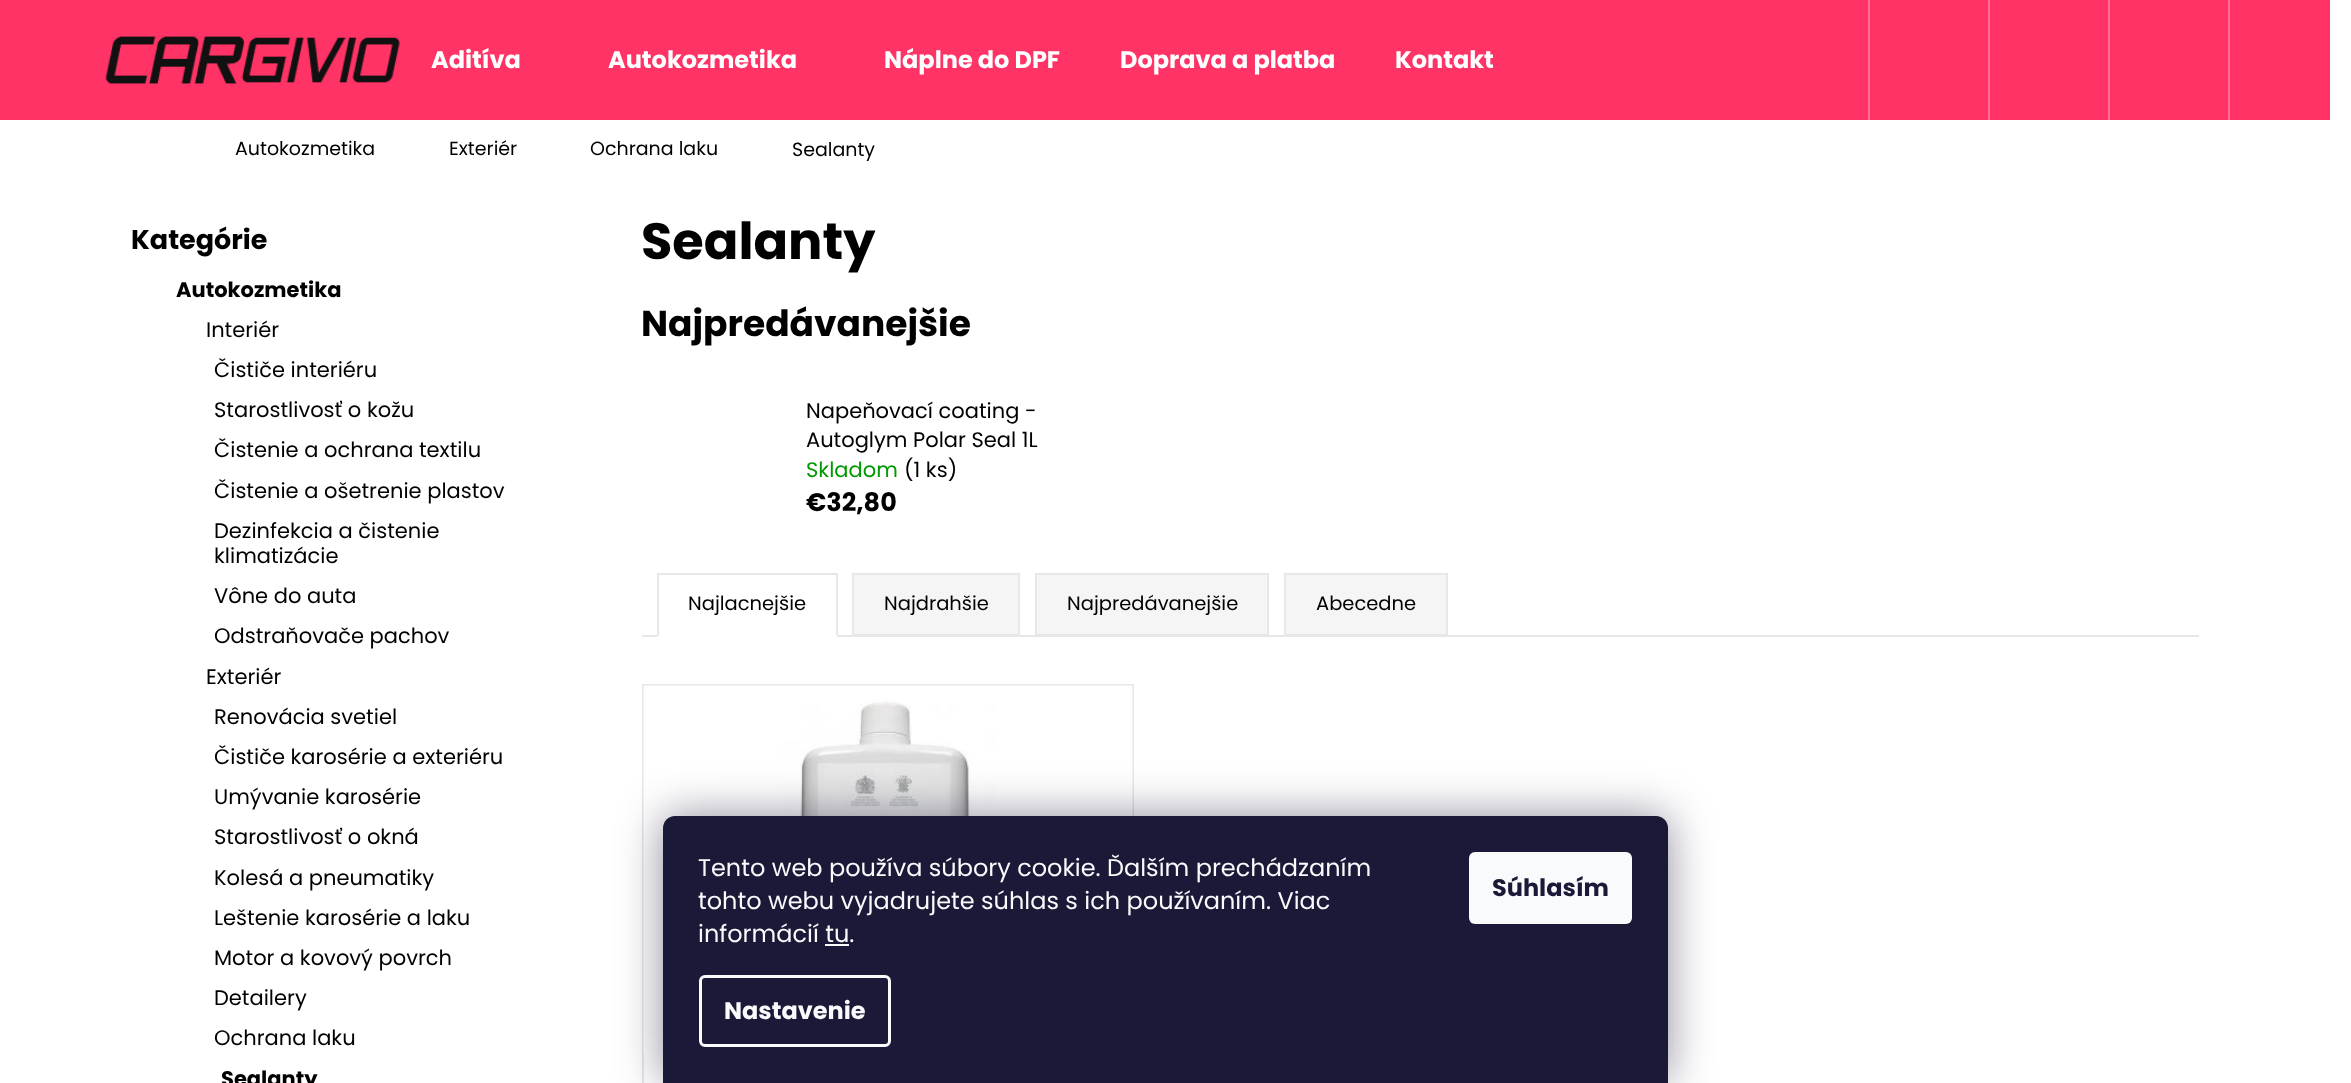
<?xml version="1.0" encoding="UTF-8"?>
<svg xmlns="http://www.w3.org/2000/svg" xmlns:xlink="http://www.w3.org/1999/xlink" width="2351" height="1083">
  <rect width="100%" height="100%" fill="#ffffff" />
  <rect width="2330" height="120" fill="#ff3366" />
  <image x="105" y="36" width="295" height="48" xlink:href="image1.png" />
  <rect x="2228" width="2" height="120" fill="#ff7094" />
  <rect x="1868" width="2" height="120" fill="#ff7094" />
  <rect x="1988" width="2" height="120" fill="#ff7094" />
  <rect x="2108" width="2" height="120" fill="#ff7094" />
  <rect x="642" y="635" width="1557" height="2" fill="#e7e7e7" />
  <rect x="657" y="573" width="180" height="2" fill="#e7e7e7" />
  <rect x="836" y="573" width="2" height="63" fill="#e7e7e7" />
  <rect x="657" y="635" width="180" height="2" fill="#ffffff" />
  <rect x="657" y="573" width="2" height="63" fill="#e7e7e7" />
  <rect x="853" y="574" width="166" height="61" fill="#f5f5f5" stroke="#e7e7e7" stroke-width="2" />
  <rect x="1036" y="574" width="232" height="61" fill="#f5f5f5" stroke="#e7e7e7" stroke-width="2" />
  <rect x="1285" y="574" width="162" height="61" fill="#f5f5f5" stroke="#e7e7e7" stroke-width="2" />
  <rect x="643" y="685" width="490" height="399" fill="none" stroke="#e6e6e6" stroke-width="2" />
  <image x="643" y="685" width="490" height="368" xlink:href="image2.png" />
  <rect x="663" y="816" width="1005" height="267" rx="12" fill="#1b1939" fill-opacity="0.5" filter="blur(22.5px)" />
  <path d="M 675 816 h 981 c 6.5 0 12 5.5 12 12 v 255 h -1005 v -255 c 0 -6.5 5.5 -12 12 -12 z" fill="#1a1937" />
  <rect x="825" y="944" width="24" height="2" fill="#f8fafb" />
  <rect x="700.5" y="976.5" width="189" height="69" rx="4.5" fill="none" stroke="#f8fafb" stroke-width="3" />
  <rect x="1469" y="852" width="163" height="72" rx="6" fill="#f8fafb" />
  <text x="431" y="68" style="font-family: Poppins; font-size: 24px; font-weight: bold; fill: #ffffff">Aditíva</text>
  <text x="608" y="68" style="font-family: Poppins; font-size: 24px; font-weight: bold; fill: #ffffff">Autokozmetika</text>
  <text x="884" y="68" style="font-family: Poppins; font-size: 24px; font-weight: bold; fill: #ffffff">Náplne do DPF</text>
  <text x="1120" y="68" style="font-family: Poppins; font-size: 24px; font-weight: bold; fill: #ffffff">Doprava a platba</text>
  <text x="1395" y="68" style="font-family: Poppins; font-size: 24px; font-weight: bold; fill: #ffffff">Kontakt</text>
  <text x="235" y="155" style="font-family: Poppins; font-size: 19px; fill: #000000">Autokozmetika</text>
  <text x="449" y="155" style="font-family: Poppins; font-size: 19px; fill: #000000">Exteriér</text>
  <text x="590" y="155" style="font-family: Poppins; font-size: 19px; fill: #000000">Ochrana laku</text>
  <text x="792" y="156" style="font-family: Poppins; font-size: 19px; fill: #000000">Sealanty</text>
  <text x="131" y="249" style="font-family: Poppins; font-size: 27px; font-weight: bold; fill: #000000">Kategórie</text>
  <text x="176" y="297" style="font-family: Poppins; font-size: 21px; font-weight: bold; fill: #000000">Autokozmetika</text>
  <text x="206" y="337" style="font-family: Poppins; font-size: 21px; fill: #000000">Interiér</text>
  <text x="214" y="377" style="font-family: Poppins; font-size: 21px; fill: #000000">Čističe interiéru</text>
  <text x="214" y="417" style="font-family: Poppins; font-size: 21px; fill: #000000">Starostlivosť o kožu</text>
  <text x="214" y="457" style="font-family: Poppins; font-size: 21px; fill: #000000">Čistenie a ochrana textilu</text>
  <text x="214" y="498" style="font-family: Poppins; font-size: 21px; fill: #000000">Čistenie a ošetrenie plastov</text>
  <text x="214" y="538" style="font-family: Poppins; font-size: 21px; fill: #000000">Dezinfekcia a čistenie</text>
  <text x="214" y="563" style="font-family: Poppins; font-size: 21px; fill: #000000">klimatizácie</text>
  <text x="214" y="603" style="font-family: Poppins; font-size: 21px; fill: #000000">Vône do auta</text>
  <text x="214" y="643" style="font-family: Poppins; font-size: 21px; fill: #000000">Odstraňovače pachov</text>
  <text x="206" y="684" style="font-family: Poppins; font-size: 21px; fill: #000000">Exteriér</text>
  <text x="214" y="724" style="font-family: Poppins; font-size: 21px; fill: #000000">Renovácia svetiel</text>
  <text x="214" y="764" style="font-family: Poppins; font-size: 21px; fill: #000000">Čističe karosérie a exteriéru</text>
  <text x="214" y="804" style="font-family: Poppins; font-size: 21px; fill: #000000">Umývanie karosérie</text>
  <text x="214" y="844" style="font-family: Poppins; font-size: 21px; fill: #000000">Starostlivosť o okná</text>
  <text x="214" y="885" style="font-family: Poppins; font-size: 21px; fill: #000000">Kolesá a pneumatiky</text>
  <text x="214" y="925" style="font-family: Poppins; font-size: 21px; fill: #000000">Leštenie karosérie a laku</text>
  <text x="214" y="965" style="font-family: Poppins; font-size: 21px; fill: #000000">Motor a kovový povrch</text>
  <text x="214" y="1005" style="font-family: Poppins; font-size: 21px; fill: #000000">Detailery</text>
  <text x="214" y="1045" style="font-family: Poppins; font-size: 21px; fill: #000000">Ochrana laku</text>
  <text x="221" y="1086" style="font-family: Poppins; font-size: 21px; font-weight: bold; fill: #000000">Sealanty</text>
  <text x="641" y="259" style="font-family: Poppins; font-size: 51px; font-weight: bold; fill: #000000">Sealanty</text>
  <text x="641" y="336" style="font-family: Poppins; font-size: 36px; font-weight: bold; fill: #000000">Najpredávanejšie</text>
  <text x="806" y="418" style="font-family: Poppins; font-size: 21px; fill: #000000">Napeňovací coating -</text>
  <text x="806" y="447" style="font-family: Poppins; font-size: 21px; fill: #000000">Autoglym Polar Seal 1L</text>
  <text x="806" y="477" style="font-family: Poppins; font-size: 21px; fill: #009901">Skladom</text>
  <text x="904" y="477" style="font-family: Poppins; font-size: 21px; fill: #000000">(1 ks)</text>
  <text x="806" y="511" style="font-family: Poppins; font-size: 25.5px; font-weight: bold; fill: #000000">€32,80</text>
  <text x="688" y="610" style="font-family: Poppins; font-size: 19.5px; fill: #000000">Najlacnejšie</text>
  <text x="884" y="610" style="font-family: Poppins; font-size: 19.5px; fill: #000000">Najdrahšie</text>
  <text x="1067" y="610" style="font-family: Poppins; font-size: 19.5px; fill: #000000">Najpredávanejšie</text>
  <text x="1316" y="610" style="font-family: Poppins; font-size: 19.5px; fill: #000000">Abecedne</text>
  <text x="698" y="876" style="font-family: Poppins; font-size: 24px; fill: #f8fafb">Tento web používa súbory cookie. Ďalším prechádzaním</text>
  <text x="698" y="909" style="font-family: Poppins; font-size: 24px; fill: #f8fafb">tohto webu vyjadrujete súhlas s ich používaním. Viac</text>
  <text x="698" y="942" style="font-family: Poppins; font-size: 24px; fill: #f8fafb">informácií tu.</text>
  <text x="724" y="1019" style="font-family: Poppins; font-size: 24px; font-weight: bold; fill: #f8fafb">Nastavenie</text>
  <text x="1492" y="896" style="font-family: Poppins; font-size: 24px; font-weight: bold; fill: #1a1937">Súhlasím</text>
</svg>
